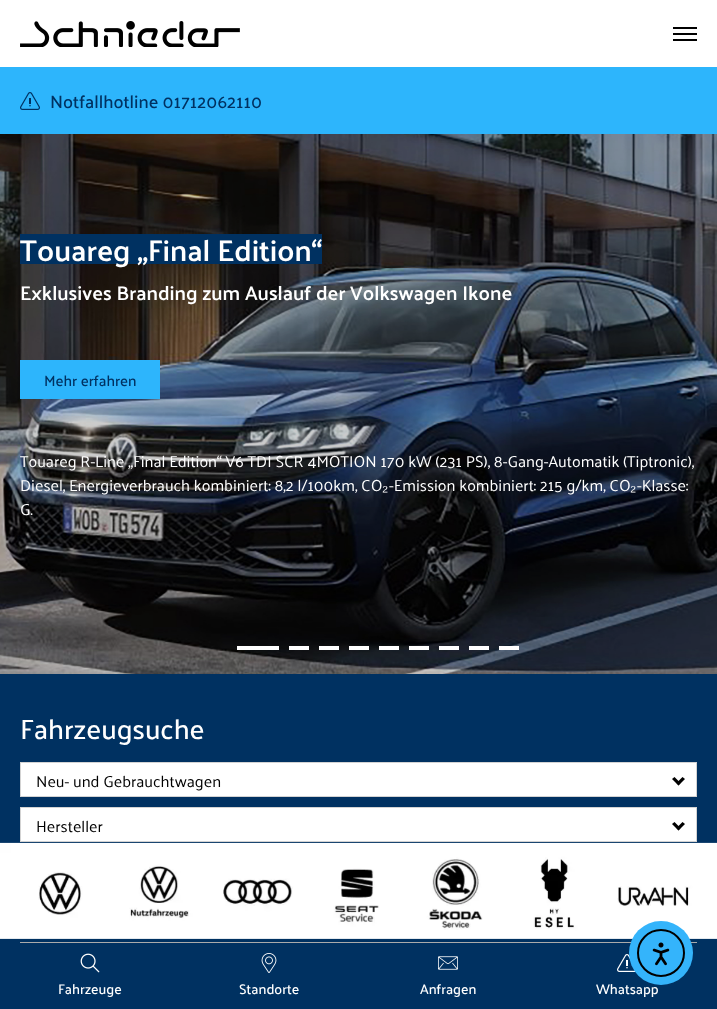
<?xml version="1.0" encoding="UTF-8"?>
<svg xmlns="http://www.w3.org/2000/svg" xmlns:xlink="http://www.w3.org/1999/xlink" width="717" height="1009">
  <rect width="100%" height="100%" fill="#ffffff" />
  <image x="20" y="21" width="220" height="26" xlink:href="image1.png" />
  <rect x="673" y="33" width="24" height="2" fill="#000000" />
  <rect x="673" y="27" width="24" height="2" fill="#000000" />
  <rect x="673" y="39" width="24" height="2" fill="#000000" />
  <rect y="67" width="717" height="67" fill="#2db5fc" />
  <image x="20" y="92" width="20" height="18" xlink:href="image2.png" />
  <image x="0" y="134" width="717" height="540" xlink:href="image3.png" />
  <rect x="20" y="234" width="302" height="30" fill="#003161" />
  <rect x="20" y="360" width="140" height="39" fill="#2db5fc" />
  <rect x="237" y="646" width="42" height="4" fill="#ffffff" />
  <rect x="289" y="646" width="20" height="4" fill="#ffffff" />
  <rect x="319" y="646" width="20" height="4" fill="#ffffff" />
  <rect x="349" y="646" width="20" height="4" fill="#ffffff" />
  <rect x="379" y="646" width="20" height="4" fill="#ffffff" />
  <rect x="409" y="646" width="20" height="4" fill="#ffffff" />
  <rect x="439" y="646" width="20" height="4" fill="#ffffff" />
  <rect x="469" y="646" width="20" height="4" fill="#ffffff" />
  <rect x="499" y="646" width="20" height="4" fill="#ffffff" />
  <rect y="674" width="717" height="269" fill="#003161" />
  <rect x="20" y="762" width="677" height="35" rx="4" fill="#ffffff" />
  <rect x="20.5" y="762.5" width="676" height="34" fill="none" stroke="#d3d3d3" />
  <path d="M 682.5 777 l 2.5 2 l -6.5 6.5 l -2 -2.5 z" fill="#000000" />
  <path d="M 674.5 777 l 6 6 l -2 2.5 l -6.5 -6.5 z" fill="#000000" />
  <rect x="20" y="807" width="677" height="35" rx="4" fill="#ffffff" />
  <rect x="20.5" y="807.5" width="676" height="34" fill="none" stroke="#d3d3d3" />
  <path d="M 682.5 822 l 2.5 2 l -6.5 6.5 l -2 -2.5 z" fill="#000000" />
  <path d="M 674.5 822 l 6 6 l -2 2.5 l -6.5 -6.5 z" fill="#000000" />
  <rect x="20.5" y="942.5" width="676" height="39" fill="none" stroke="#aaaaaa" />
  <image x="0" y="842" width="717" height="97" xlink:href="image5.png" />
  <rect y="943" width="717" height="66" fill="#003161" />
  <image x="80" y="953" width="20" height="20" xlink:href="image6.png" />
  <image x="261" y="953" width="16" height="20" xlink:href="image7.png" />
  <image x="438" y="956" width="20" height="14" xlink:href="image8.png" />
  <image x="617" y="954" width="19" height="18" xlink:href="image9.png" />
  <text x="50" y="108" style="font-family: Palanquin; font-size: 18px; font-weight: 500; fill: #003161">Notfallhotline 01712062110</text>
  <text x="20" y="261" style="font-family: Palanquin; font-size: 30px; font-weight: 600; fill: #ffffff">Touareg „Final Edition“</text>
  <text x="20" y="300" style="font-family: Palanquin; font-size: 20px; font-weight: 600; fill: #ffffff">Exklusives Branding zum Auslauf der Volkswagen Ikone</text>
  <text x="44" y="386" style="font-family: Palanquin; font-size: 15px; font-weight: 500; fill: #003161">Mehr erfahren</text>
  <text x="20" y="467" style="font-family: Palanquin; font-size: 16px; fill: #ffffff">Touareg R-Line „Final Edition“ V6 TDI SCR 4MOTION 170 kW (231 PS), 8-Gang-Automatik (Tiptronic),</text>
  <text x="20" y="491" style="font-family: Palanquin; font-size: 16px; fill: #ffffff">Diesel, Energieverbrauch kombiniert: 8,2 l/100km, CO</text>
  <text x="382" y="491" style="font-family: Liberation Sans; font-size: 16px; fill: #ffffff">₂</text>
  <text x="389" y="491" style="font-family: Palanquin; font-size: 16px; fill: #ffffff">-Emission kombiniert: 215 g/km, CO</text>
  <text x="630" y="491" style="font-family: Liberation Sans; font-size: 16px; fill: #ffffff">₂</text>
  <text x="637" y="491" style="font-family: Palanquin; font-size: 16px; fill: #ffffff">-Klasse:</text>
  <text x="20" y="515" style="font-family: Palanquin; font-size: 16px; fill: #ffffff">G.</text>
  <text x="20" y="739" style="font-family: Palanquin; font-size: 28px; font-weight: 500; fill: #ffffff">Fahrzeugsuche</text>
  <text x="36" y="787" style="font-family: Palanquin; font-size: 16px; fill: #000000">Neu- und Gebrauchtwagen</text>
  <text x="36" y="832" style="font-family: Palanquin; font-size: 16px; fill: #000000">Hersteller</text>
  <text x="58" y="994" style="font-family: Palanquin; font-size: 14px; font-weight: 500; fill: #ffffff">Fahrzeuge</text>
  <text x="239" y="994" style="font-family: Palanquin; font-size: 14px; font-weight: 500; fill: #ffffff">Standorte</text>
  <text x="420" y="994" style="font-family: Palanquin; font-size: 14px; font-weight: 500; fill: #ffffff">Anfragen</text>
  <text x="596" y="994" style="font-family: Palanquin; font-size: 14px; font-weight: 500; fill: #ffffff">Whatsapp</text>
  <circle cx="661" cy="953" r="32" fill="#34b4fb" />
  <circle cx="661" cy="953" r="23" fill="none" stroke="#000000" stroke-width="2" />
  <image x="652" y="942" width="18" height="24" xlink:href="image4.png" />
</svg>
